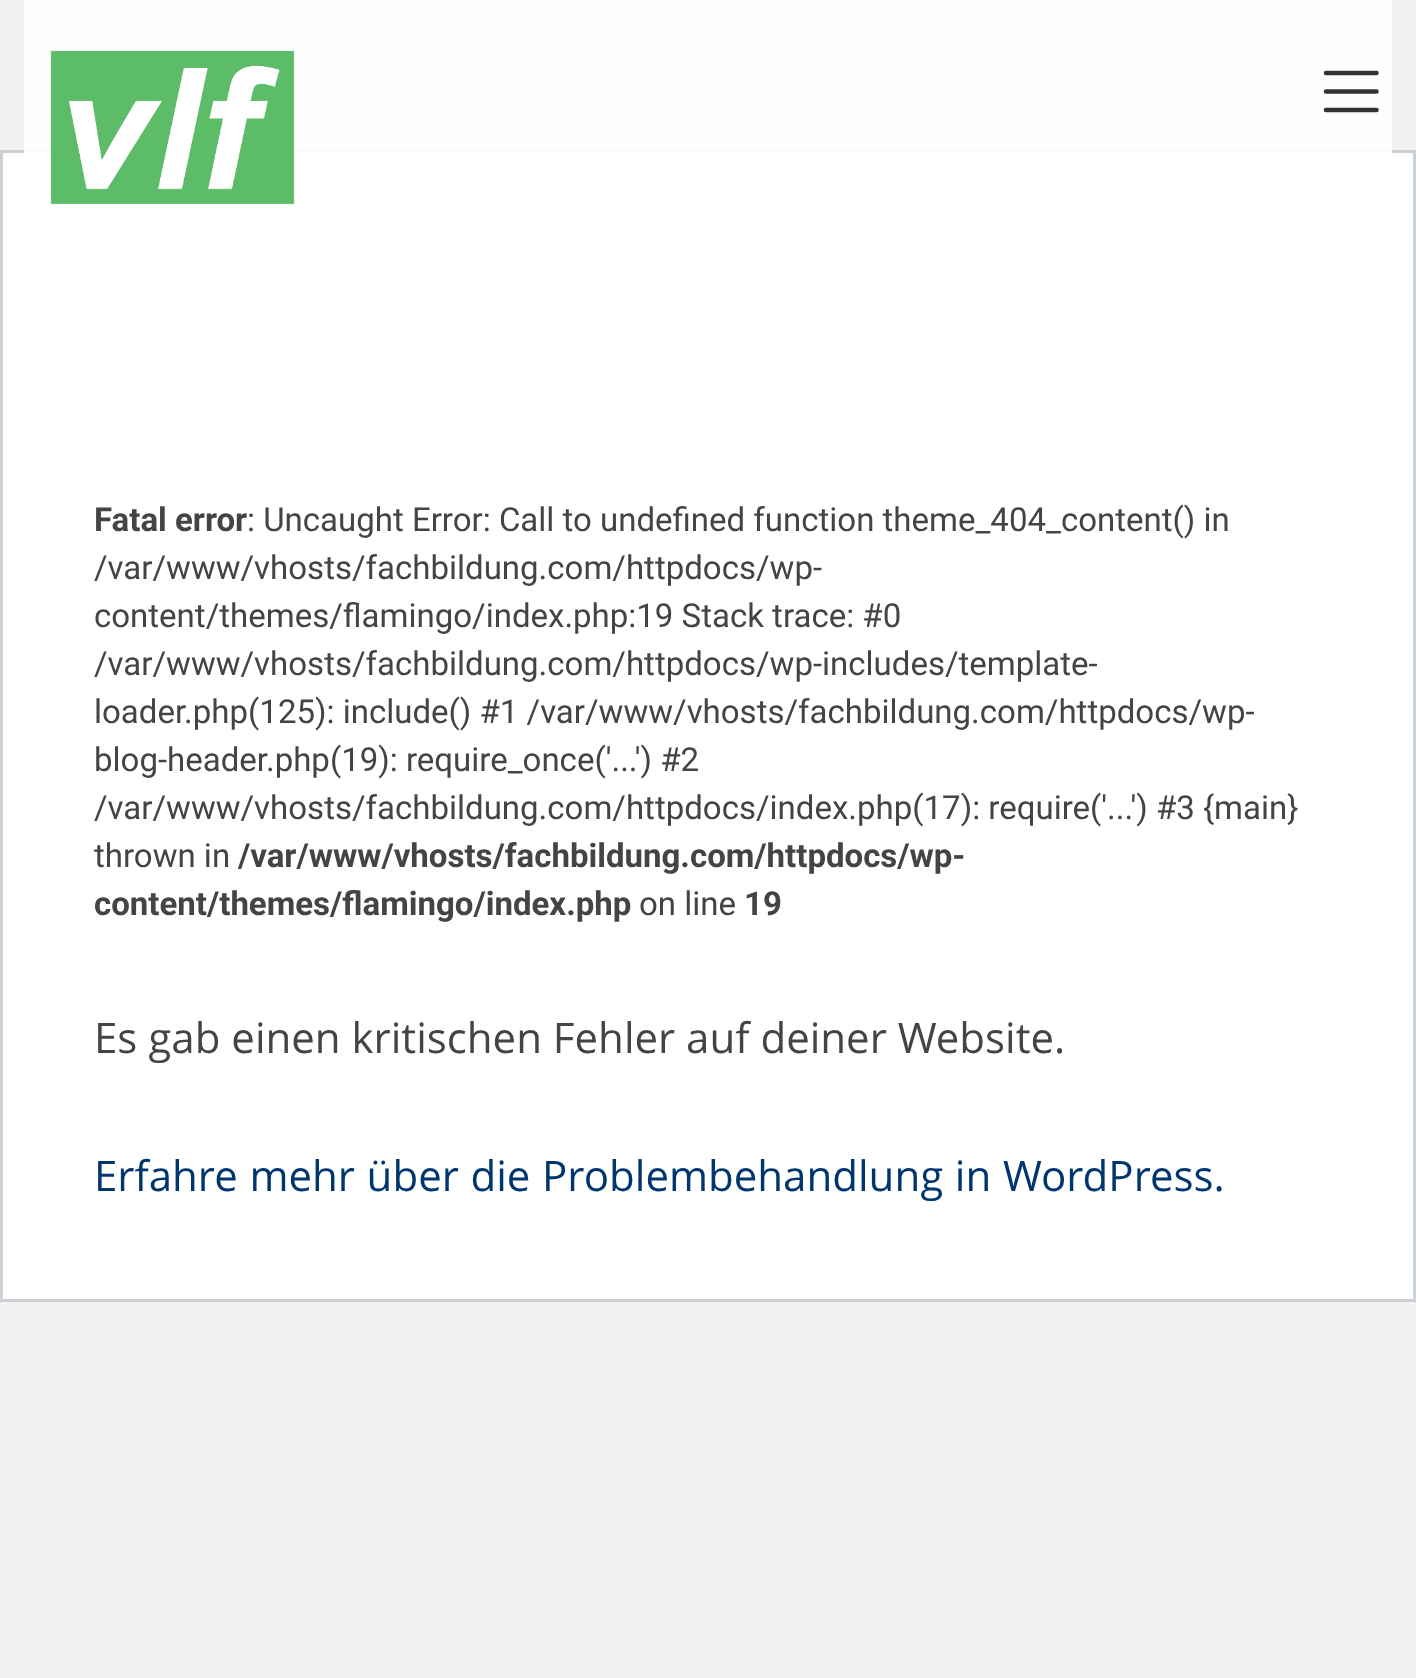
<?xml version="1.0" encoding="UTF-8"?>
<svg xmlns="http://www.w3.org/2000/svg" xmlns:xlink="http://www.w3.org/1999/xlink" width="1416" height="1678">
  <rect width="100%" height="100%" fill="#f1f1f1" />
  <rect x="1.5" y="151.5" width="1413" height="1149" fill="#ffffff" stroke="#ccd0d4" stroke-width="3" />
  <rect x="24" width="1368" height="153" fill="#ffffff" fill-opacity="0.9" />
  <image x="50" y="50" width="245" height="155" xlink:href="image1.png" />
  <path d="M 1326 73 h 50.5 m -50.5 18.5 h 50.5 m -50.5 18.5 h 50.5" fill="none" stroke="#333333" stroke-width="4.6" stroke-linecap="round" />
  <text x="94" y="531" style="font-family: Roboto; font-size: 33px; font-weight: bold; fill: #444444">Fatal error</text>
  <text x="247" y="531" style="font-family: Roboto; font-size: 33px; fill: #444444">: Uncaught Error: Call to undefined function theme_404_content() in</text>
  <text x="94" y="579" style="font-family: Roboto; font-size: 33px; fill: #444444">/var/www/vhosts/fachbildung.com/httpdocs/wp-</text>
  <text x="94" y="627" style="font-family: Roboto; font-size: 33px; fill: #444444">content/themes/flamingo/index.php:19 Stack trace: #0</text>
  <text x="94" y="675" style="font-family: Roboto; font-size: 33px; fill: #444444">/var/www/vhosts/fachbildung.com/httpdocs/wp-includes/template-</text>
  <text x="94" y="723" style="font-family: Roboto; font-size: 33px; fill: #444444">loader.php(125): include() #1 /var/www/vhosts/fachbildung.com/httpdocs/wp-</text>
  <text x="94" y="771" style="font-family: Roboto; font-size: 33px; fill: #444444">blog-header.php(19): require_once('...') #2</text>
  <text x="94" y="819" style="font-family: Roboto; font-size: 33px; fill: #444444">/var/www/vhosts/fachbildung.com/httpdocs/index.php(17): require('...') #3 {main}</text>
  <text x="94" y="867" style="font-family: Roboto; font-size: 33px; fill: #444444">thrown in</text>
  <text x="238" y="867" style="font-family: Roboto; font-size: 33px; font-weight: bold; fill: #444444">/var/www/vhosts/fachbildung.com/httpdocs/wp-</text>
  <text x="94" y="915" style="font-family: Roboto; font-size: 33px; font-weight: bold; fill: #444444">content/themes/flamingo/index.php</text>
  <text x="639" y="915" style="font-family: Roboto; font-size: 33px; fill: #444444">on line</text>
  <text x="744" y="915" style="font-family: Roboto; font-size: 33px; font-weight: bold; fill: #444444">19</text>
  <text x="94" y="1053" style="font-family: Open Sans; font-size: 42px; fill: #444444">Es gab einen kritischen Fehler auf deiner Website.</text>
  <text x="94" y="1191" word-spacing="0.75" style="font-family: Open Sans; font-size: 42px; fill: #00366f">Erfahre mehr über die Problembehandlung in WordPress.</text>
</svg>
